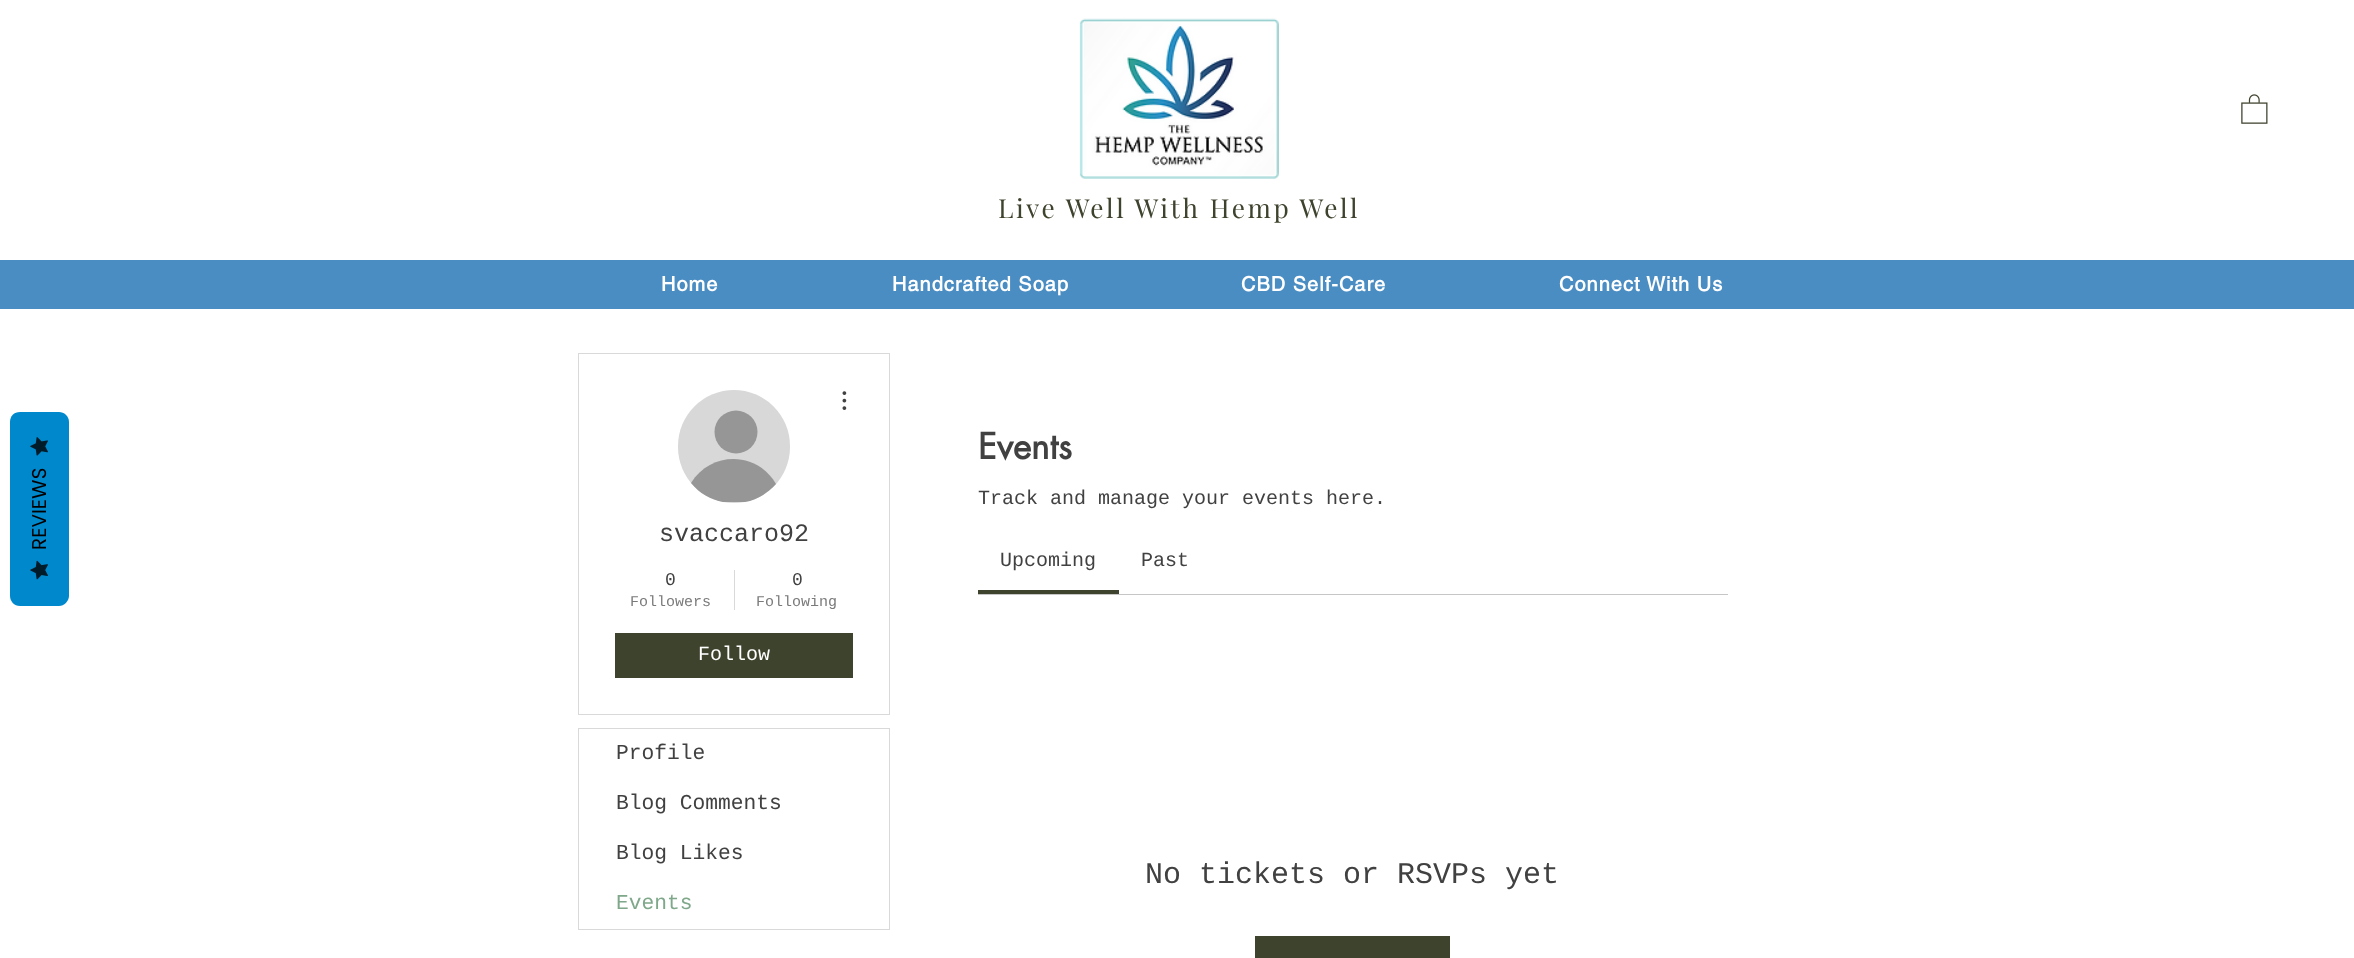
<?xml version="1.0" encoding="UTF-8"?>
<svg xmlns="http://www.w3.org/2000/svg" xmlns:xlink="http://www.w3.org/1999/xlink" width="2354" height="958">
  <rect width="100%" height="100%" fill="#ffffff" />
  <path d="M 10 596 v -174 c 0 -6 4 -10 10 -10 h 39 c 5 0 10 4 10 10 v 174 c 0 5 -5 10 -10 10 h -39 c -6 0 -10 -5 -10 -10 z" fill="#0088cc" />
  <image x="30" y="437" width="18" height="19" xlink:href="image1.png" />
  <image x="30" y="560" width="18" height="20" xlink:href="image2.png" />
  <image x="2241" y="94" width="27" height="30" xlink:href="image3.png" />
  <image x="1079" y="18" width="200" height="161" xlink:href="image4.png" />
  <rect y="260" width="2354" height="49" fill="#4a8dc3" />
  <rect x="578.5" y="353.5" width="311" height="361" fill="none" stroke="#d9d9d9" />
  <rect x="678" y="390" width="112" height="113" rx="56" fill="#d8d8d8" />
  <circle cx="736" cy="432" r="21.5" fill="#969696" />
  <path d="M 723 502 c -12 -2 -24 -9 -32 -19 c 20 -32 66 -32 85 1 c -8 9 -19 16 -31 18 z" fill="#969696" />
  <image x="842" y="391" width="5" height="19" xlink:href="image5.png" />
  <rect x="734" y="570" width="1" height="40" fill="#d9d9d9" />
  <rect x="615" y="633" width="238" height="45" fill="#3e432d" />
  <rect x="578.5" y="728.5" width="311" height="201" fill="none" stroke="#d9d9d9" />
  <rect x="978" y="590" width="141" height="4" fill="#3e432d" />
  <rect x="978" y="594" width="750" height="1" fill="#c6c6c6" />
  <rect x="1255" y="936" width="195" height="22" fill="#3e432d" />
  <text x="46" y="550" transform="rotate(-90 46 550)" style="font-family: Poppins; font-size: 20px; fill: #000000">REVIEWS</text>
  <text x="998" y="218" style="font-family: Playfair Display; font-size: 26.25px; letter-spacing: 2.6px; fill: #3e432d">Live Well With Hemp Well</text>
  <text x="661" y="291" style="font-family: helvetica; font-size: 20px; font-weight: bold; letter-spacing: 1px; fill: #ffffff">Home</text>
  <text x="892" y="291" style="font-family: helvetica; font-size: 20px; font-weight: bold; letter-spacing: 1px; fill: #ffffff">Handcrafted Soap</text>
  <text x="1241" y="291" style="font-family: helvetica; font-size: 20px; font-weight: bold; letter-spacing: 1px; fill: #ffffff">CBD Self-Care</text>
  <text x="1559" y="291" style="font-family: helvetica; font-size: 20px; font-weight: bold; letter-spacing: 1px; fill: #ffffff">Connect With Us</text>
  <text x="659" y="541" style="font-family: Liberation Mono; font-size: 25px; fill: #414141">svaccaro92</text>
  <text x="665" y="585" style="font-family: Liberation Mono; font-size: 18px; fill: #414141">0</text>
  <text x="630" y="606" style="font-family: Liberation Mono; font-size: 15px; fill: #7a7a7a">Followers</text>
  <text x="792" y="585" style="font-family: Liberation Mono; font-size: 18px; fill: #414141">0</text>
  <text x="756" y="606" style="font-family: Liberation Mono; font-size: 15px; fill: #7a7a7a">Following</text>
  <text x="698" y="660" style="font-family: Liberation Mono; font-size: 20px; fill: #ffffff">Follow</text>
  <text x="616" y="759" style="font-family: Liberation Mono; font-size: 21.25px; fill: #414141">Profile</text>
  <text x="616" y="809" style="font-family: Liberation Mono; font-size: 21.25px; fill: #414141">Blog Comments</text>
  <text x="616" y="859" style="font-family: Liberation Mono; font-size: 21.25px; fill: #414141">Blog Likes</text>
  <text x="616" y="909" style="font-family: Liberation Mono; font-size: 21.25px; fill: #7fa88b">Events</text>
  <text x="978" y="459" style="font-family: futura; font-size: 35px; font-weight: bold; fill: #414141">Events</text>
  <text x="978" y="504" style="font-family: Liberation Mono; font-size: 20px; fill: #414141">Track and manage your events here.</text>
  <text x="1000" y="566" style="font-family: Liberation Mono; font-size: 20px; fill: #414141">Upcoming</text>
  <text x="1141" y="566" style="font-family: Liberation Mono; font-size: 20px; fill: #414141">Past</text>
  <text x="1145" y="883" style="font-family: Liberation Mono; font-size: 30px; fill: #414141">No tickets or RSVPs yet</text>
</svg>
